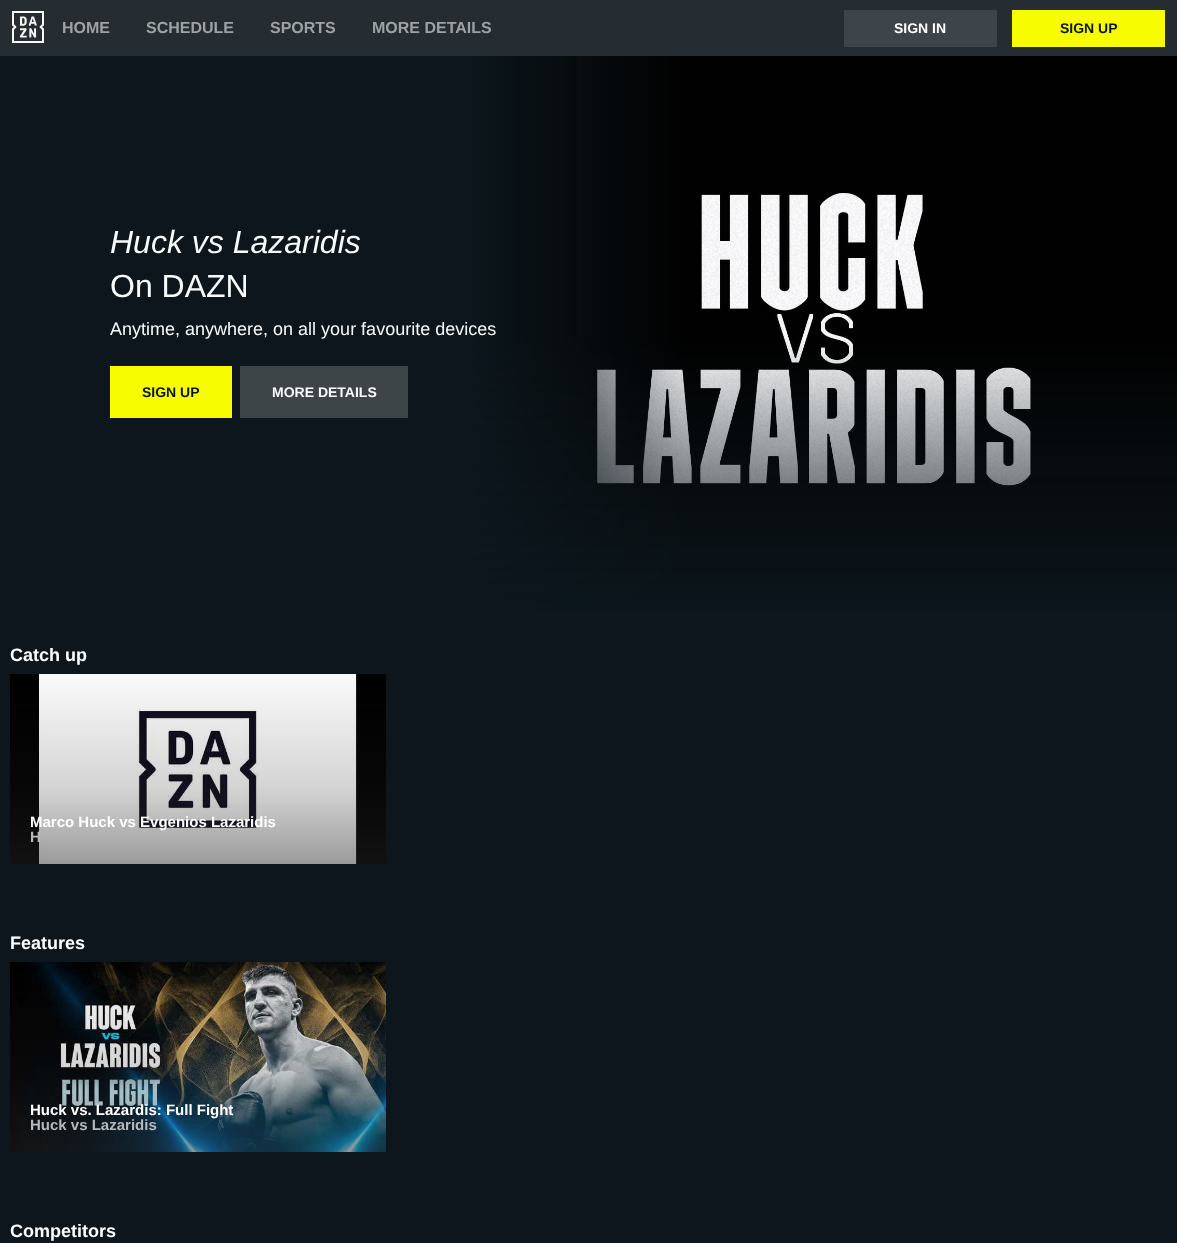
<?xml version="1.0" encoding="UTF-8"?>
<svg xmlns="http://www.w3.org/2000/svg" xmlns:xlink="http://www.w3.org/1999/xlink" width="1177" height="1243">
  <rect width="100%" height="100%" fill="#0c161c" />
  <rect width="1177" height="56" fill="#252d32" />
  <image x="12" y="11" width="32" height="32" xlink:href="image1.png" />
  <rect x="844" y="10" width="153" height="37" fill="#3d454b" />
  <rect x="1012" y="10" width="153" height="37" fill="#f8fc00" />
  <rect x="110" y="366" width="122" height="52" fill="#f8fc00" />
  <rect x="240" y="366" width="168" height="52" fill="#3d4549" />
  <image x="471" y="56" width="706" height="560" xlink:href="image2.png" />
  <image x="10" y="674" width="376" height="190" xlink:href="image3.png" />
  <image x="10" y="962" width="376" height="190" xlink:href="image4.png" />
  <text x="62" y="33" style="font-family: Liberation Sans; font-size: 16px; font-weight: bold; fill: #9ea2a4">HOME</text>
  <text x="146" y="33" style="font-family: Liberation Sans; font-size: 16px; font-weight: bold; fill: #9ea2a4">SCHEDULE</text>
  <text x="270" y="33" style="font-family: Liberation Sans; font-size: 16px; font-weight: bold; fill: #9ea2a4">SPORTS</text>
  <text x="372" y="33" style="font-family: Liberation Sans; font-size: 16px; font-weight: bold; fill: #9ea2a4">MORE DETAILS</text>
  <text x="894" y="33" style="font-family: Liberation Sans; font-size: 14px; font-weight: bold; fill: #ffffff">SIGN IN</text>
  <text x="1060" y="33" style="font-family: Liberation Sans; font-size: 14px; font-weight: bold; fill: #0c161c">SIGN UP</text>
  <text x="110" y="253" style="font-family: Liberation Sans; font-size: 32px; font-style: italic; fill: #f9fafa">Huck vs Lazaridis</text>
  <text x="110" y="297" style="font-family: Liberation Sans; font-size: 32px; fill: #f9fafa">On DAZN</text>
  <text x="110" y="335" style="font-family: Liberation Sans; font-size: 18px; fill: #f9fafa">Anytime, anywhere, on all your favourite devices</text>
  <text x="142" y="397" style="font-family: Liberation Sans; font-size: 14px; font-weight: bold; fill: #0c161c">SIGN UP</text>
  <text x="272" y="397" style="font-family: Liberation Sans; font-size: 14px; font-weight: bold; fill: #f9fafa">MORE DETAILS</text>
  <text x="10" y="661" style="font-family: Liberation Sans; font-size: 18px; font-weight: bold; fill: #ffffff">Catch up</text>
  <text x="30" y="827" style="font-family: Liberation Sans; font-size: 15px; font-weight: bold; fill: #ffffff">Marco Huck vs Evgenios Lazaridis</text>
  <text x="30" y="842" style="font-family: Liberation Sans; font-size: 15px; font-weight: bold; fill: #b6b9bb">H</text>
  <text x="10" y="949" style="font-family: Liberation Sans; font-size: 18px; font-weight: bold; fill: #ffffff">Features</text>
  <text x="30" y="1115" style="font-family: Liberation Sans; font-size: 15px; font-weight: bold; fill: #ffffff">Huck vs. Lazardis: Full Fight</text>
  <text x="30" y="1130" style="font-family: Liberation Sans; font-size: 15px; font-weight: bold; fill: #b6b9bb">Huck vs Lazaridis</text>
  <text x="10" y="1237" style="font-family: Liberation Sans; font-size: 18px; font-weight: bold; fill: #ffffff">Competitors</text>
</svg>
